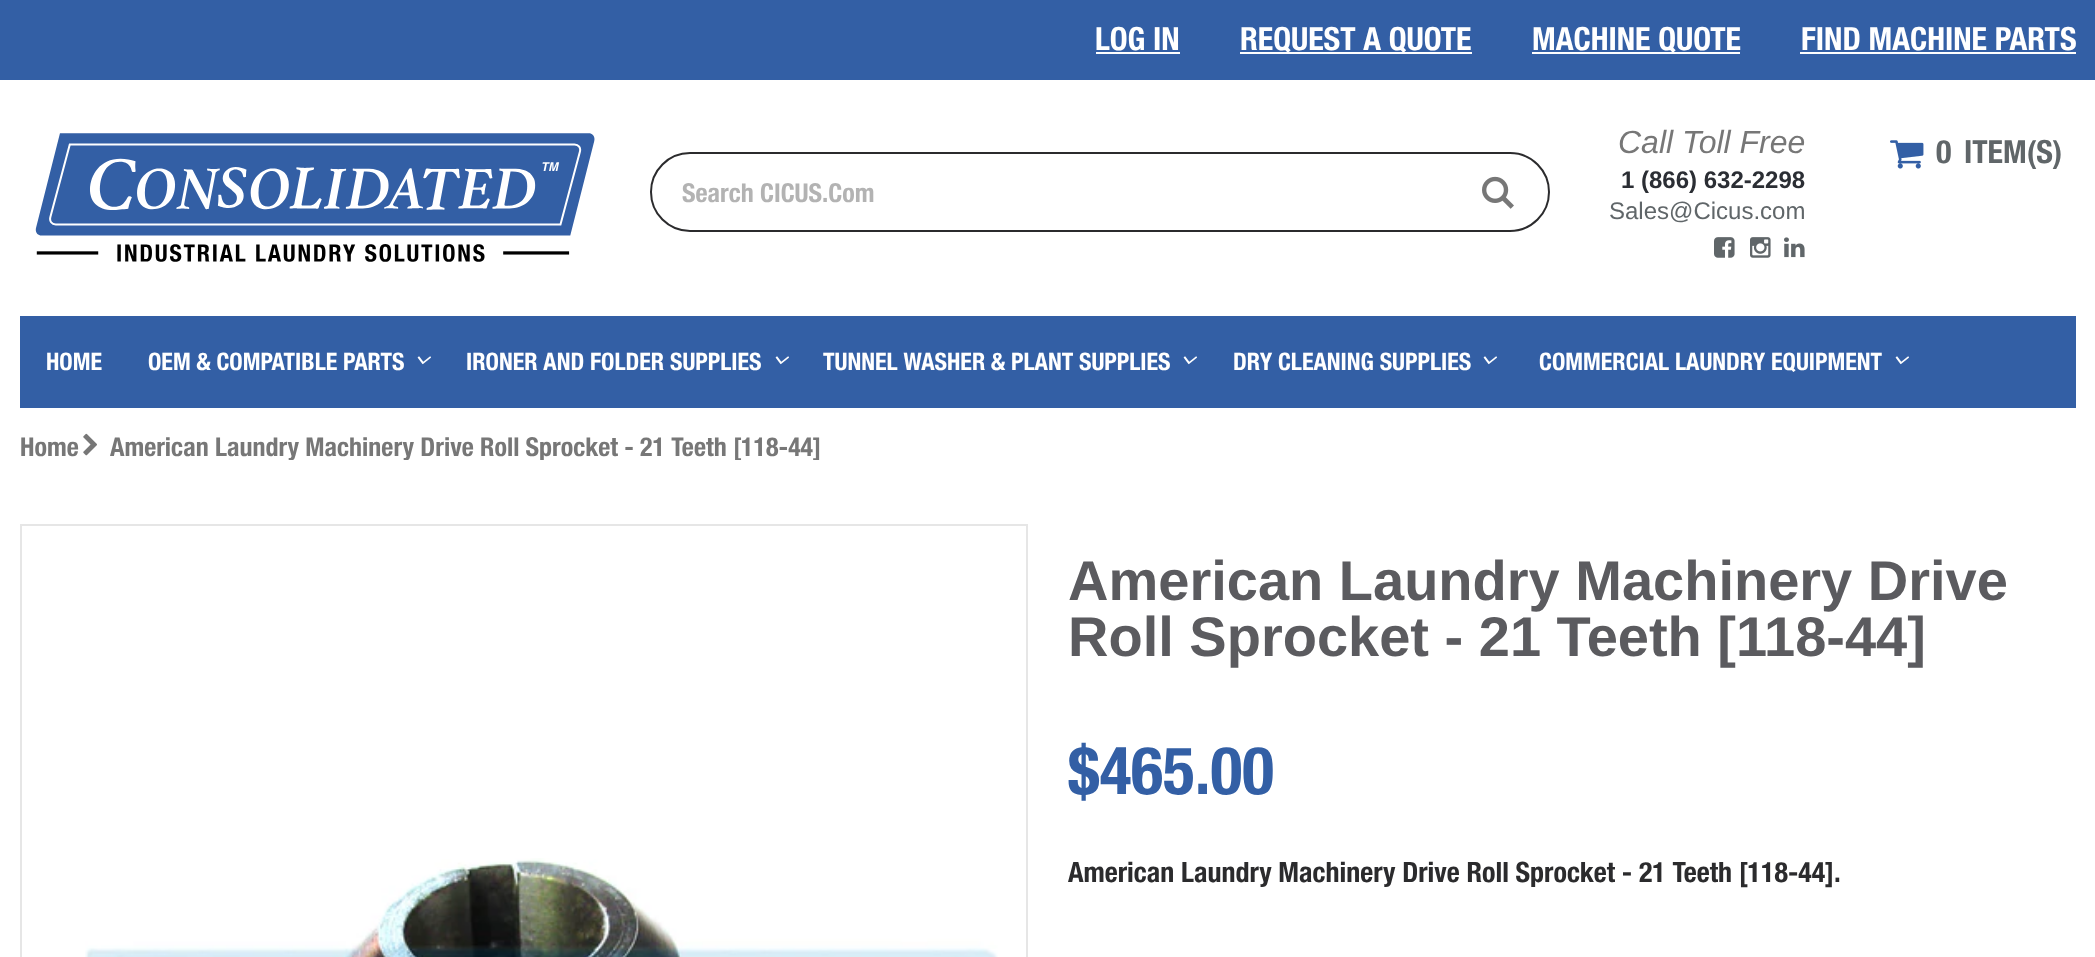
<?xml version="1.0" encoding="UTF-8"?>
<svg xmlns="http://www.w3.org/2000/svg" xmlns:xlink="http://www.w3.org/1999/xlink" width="2095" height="957">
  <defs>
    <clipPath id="clip1"><rect x="20" y="432" width="2056" height="28" /></clipPath>
  </defs>
  <rect width="100%" height="100%" fill="#ffffff" />
  <rect width="2095" height="80" fill="#335fa5" />
  <rect x="1096" y="52" width="84" height="2" fill="#ffffff" />
  <rect x="1240" y="52" width="232" height="2" fill="#ffffff" />
  <rect x="1532" y="52" width="208" height="2" fill="#ffffff" />
  <rect x="1800" y="52" width="276" height="2" fill="#ffffff" />
  <image x="35" y="133" width="560" height="129" xlink:href="image1.png" />
  <rect x="651" y="153" width="898" height="78" rx="39" fill="none" stroke="#2b2b2d" stroke-width="2" />
  <image x="1482" y="176" width="32" height="33" xlink:href="image2.png" />
  <image x="1714" y="237" width="21" height="21" xlink:href="image3.png" />
  <image x="1750" y="237" width="21" height="21" xlink:href="image4.png" />
  <image x="1784" y="237" width="21" height="21" xlink:href="image5.png" />
  <image x="1890" y="140" width="34" height="29" xlink:href="image6.png" />
  <rect x="20" y="316" width="2056" height="92" fill="#335fa5" />
  <image x="417" y="356" width="14" height="9" xlink:href="image7.png" />
  <image x="775" y="356" width="14" height="9" xlink:href="image7.png" />
  <image x="1183" y="356" width="14" height="9" xlink:href="image7.png" />
  <image x="1483" y="356" width="14" height="9" xlink:href="image7.png" />
  <image x="1895" y="356" width="14" height="9" xlink:href="image7.png" />
  <image x="83" y="433" width="14" height="23" xlink:href="image8.png" />
  <rect x="21" y="525" width="1006" height="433" fill="none" stroke="#e6e6e6" stroke-width="2" />
  <image x="85" y="858" width="913" height="99" xlink:href="image9.png" />
  <text x="1095" y="50" style="font-family: Helvetica Neue; font-size: 32px; font-weight: bold; font-style: italic; fill: #ffffff">LOG IN</text>
  <text x="1240" y="50" style="font-family: Helvetica Neue; font-size: 32px; font-weight: bold; font-style: italic; fill: #ffffff">REQUEST A QUOTE</text>
  <text x="1532" y="50" style="font-family: Helvetica Neue; font-size: 32px; font-weight: bold; font-style: italic; fill: #ffffff">MACHINE QUOTE</text>
  <text x="1801" y="50" style="font-family: Helvetica Neue; font-size: 32px; font-weight: bold; font-style: italic; fill: #ffffff">FIND MACHINE PARTS</text>
  <text x="682" y="202" style="font-family: Helvetica Neue; font-size: 26px; font-weight: bold; font-style: italic; fill: #b3b3b3">Search CICUS.Com</text>
  <text x="1618" y="153" style="font-family: Liberation Sans; font-size: 32px; font-style: italic; fill: #777777">Call Toll Free</text>
  <text x="1621" y="188" style="font-family: Liberation Sans; font-size: 24px; font-weight: bold; fill: #2b2e34">1 (866) 632-2298</text>
  <text x="1609" y="219" style="font-family: Liberation Sans; font-size: 24px; fill: #606669">Sales@Cicus.com</text>
  <text x="1936" y="163" style="font-family: Helvetica Neue; font-size: 32px; font-weight: bold; font-style: italic; fill: #606669">0</text>
  <text x="1964" y="163" style="font-family: Helvetica Neue; font-size: 32px; font-weight: bold; font-style: italic; fill: #606669">ITEM(S)</text>
  <text x="46" y="370" style="font-family: Helvetica Neue; font-size: 24px; font-weight: bold; font-style: italic; fill: #ffffff">HOME</text>
  <text x="148" y="370" style="font-family: Helvetica Neue; font-size: 24px; font-weight: bold; font-style: italic; fill: #ffffff">OEM &amp; COMPATIBLE PARTS</text>
  <text x="466" y="370" style="font-family: Helvetica Neue; font-size: 24px; font-weight: bold; font-style: italic; fill: #ffffff">IRONER AND FOLDER SUPPLIES</text>
  <text x="823" y="370" style="font-family: Helvetica Neue; font-size: 24px; font-weight: bold; font-style: italic; fill: #ffffff">TUNNEL WASHER &amp; PLANT SUPPLIES</text>
  <text x="1233" y="370" style="font-family: Helvetica Neue; font-size: 24px; font-weight: bold; font-style: italic; fill: #ffffff">DRY CLEANING SUPPLIES</text>
  <text x="1539" y="370" style="font-family: Helvetica Neue; font-size: 24px; font-weight: bold; font-style: italic; fill: #ffffff">COMMERCIAL LAUNDRY EQUIPMENT</text>
  <text x="20" y="456" style="font-family: Helvetica Neue; font-size: 26px; font-weight: bold; font-style: italic; fill: #777777">Home</text>
  <g clip-path="url(#clip1)">
    <text x="110" y="456" style="font-family: Helvetica Neue; font-size: 26px; font-weight: bold; font-style: italic; fill: #777777">American Laundry Machinery Drive Roll Sprocket - 21 Teeth [118-44]</text>
  </g>
  <text x="1068" y="600" style="font-family: Liberation Sans; font-size: 56px; font-weight: bold; fill: #5b5b5f">American Laundry Machinery Drive</text>
  <text x="1068" y="656" style="font-family: Liberation Sans; font-size: 56px; font-weight: bold; fill: #5b5b5f">Roll Sprocket - 21 Teeth [118-44]</text>
  <text x="1068" y="794" style="font-family: Helvetica Neue; font-size: 66px; font-weight: bold; font-style: italic; fill: #335fa5">$465.00</text>
  <text x="1068" y="882" style="font-family: Helvetica Neue; font-size: 28px; font-weight: bold; font-style: italic; fill: #2b2b2d">American Laundry Machinery Drive Roll Sprocket - 21 Teeth [118-44].</text>
</svg>
